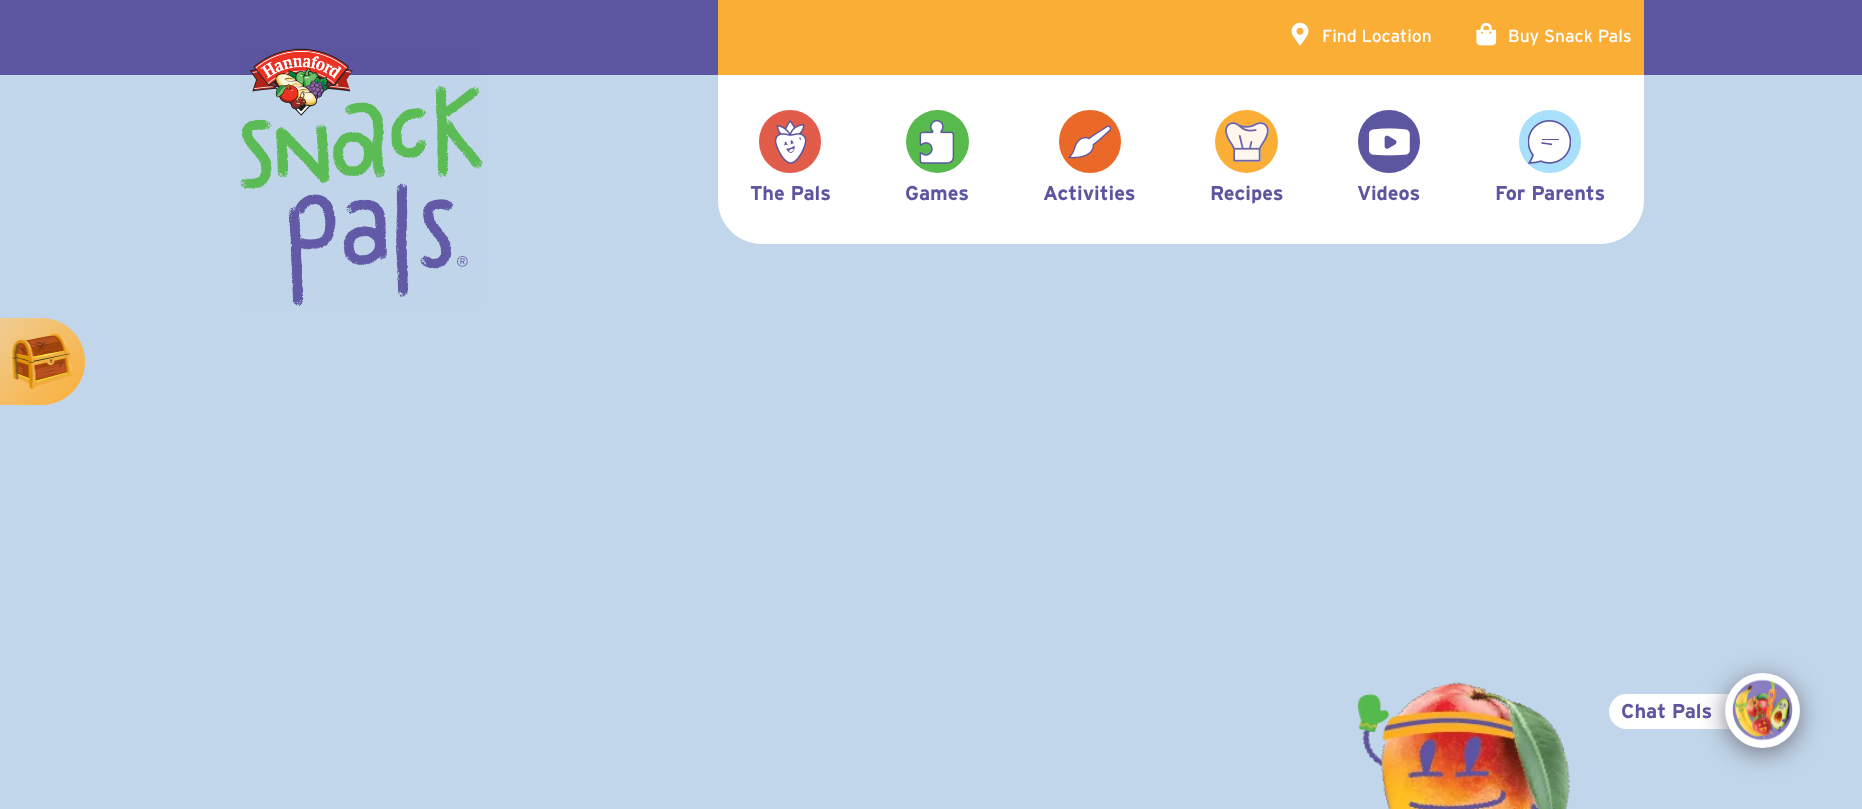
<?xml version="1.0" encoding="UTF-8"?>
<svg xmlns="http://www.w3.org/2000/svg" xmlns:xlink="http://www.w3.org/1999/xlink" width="1862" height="809">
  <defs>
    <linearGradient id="g1" gradientUnits="userSpaceOnUse" x1="-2.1" y1="320" x2="87" y2="403"><stop offset="0" stop-color="#f0cc93" /><stop offset="1" stop-color="#faae36" /></linearGradient>
  </defs>
  <rect width="100%" height="100%" fill="#c1d6ea" />
  <rect width="1862" height="75" fill="#5c55a0" />
  <image x="240" y="48" width="243" height="259" xlink:href="image1.png" />
  <rect x="718" width="926" height="75" fill="#faae36" />
  <image x="1291" y="22" width="18" height="24" xlink:href="image2.png" />
  <image x="1476" y="22" width="21" height="24" xlink:href="image3.png" />
  <path d="M 0 318 h 41.5 c 24 0 43.5 19.5 43.5 43.5 c 0 24 -19.5 43.5 -43.5 43.5 h -41.5 z" fill="url(#g1)" />
  <image x="12" y="333" width="61" height="56" xlink:href="image4.png" />
  <path d="M 718 75 h 926 v 125 c 0 24.5 -19.5 44 -44 44 h -838 c -24.5 0 -44 -19.5 -44 -44 z" fill="#ffffff" />
  <rect x="759" y="110" width="62" height="63" rx="31" fill="#e25c4a" />
  <image x="774" y="120" width="33" height="44" xlink:href="image5.png" />
  <circle cx="937.5" cy="141.5" r="31.5" fill="#58ba4c" />
  <image x="919" y="120" width="36" height="44" xlink:href="image6.png" />
  <rect x="1059" y="110" width="62" height="63" rx="31" fill="#ea6928" />
  <image x="1068" y="125" width="43" height="34" xlink:href="image7.png" />
  <circle cx="1246.5" cy="141.5" r="31.5" fill="#faae36" />
  <image x="1225" y="122" width="44" height="40" xlink:href="image8.png" />
  <rect x="1358" y="110" width="62" height="63" rx="31" fill="#5c55a0" />
  <image x="1369" y="128" width="41" height="28" xlink:href="image9.png" />
  <rect x="1519" y="110" width="62" height="63" rx="31" fill="#a8e0fc" />
  <image x="1528" y="120" width="43" height="44" xlink:href="image10.png" />
  <image x="1357" y="682" width="213" height="127" xlink:href="image11.png" />
  <rect x="1609" y="694" width="149" height="35" rx="17.5" fill="#ffffff" />
  <rect x="1725" y="678" width="75" height="75" rx="37.5" fill="#767580" filter="blur(12.5px)" />
  <circle cx="1762.5" cy="710.5" r="37.5" fill="#ffffff" />
  <image x="1732" y="679" width="61" height="62" xlink:href="image12.png" />
  <text x="1322" y="42" style="font-family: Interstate; font-size: 17.5px; fill: #ffffff">Find Location</text>
  <text x="1508" y="42" style="font-family: Interstate; font-size: 17.5px; fill: #ffffff">Buy Snack Pals</text>
  <text x="750" y="200" style="font-family: Interstate; font-size: 20px; font-weight: bold; fill: #5c55a0">The Pals</text>
  <text x="905" y="200" style="font-family: Interstate; font-size: 20px; font-weight: bold; fill: #5c55a0">Games</text>
  <text x="1043" y="200" style="font-family: Interstate; font-size: 20px; font-weight: bold; fill: #5c55a0">Activities</text>
  <text x="1210" y="200" style="font-family: Interstate; font-size: 20px; font-weight: bold; fill: #5c55a0">Recipes</text>
  <text x="1357" y="200" style="font-family: Interstate; font-size: 20px; font-weight: bold; fill: #5c55a0">Videos</text>
  <text x="1495" y="200" style="font-family: Interstate; font-size: 20px; font-weight: bold; fill: #5c55a0">For Parents</text>
  <text x="1621" y="718" style="font-family: Interstate; font-size: 20px; font-weight: bold; fill: #5c55a0">Chat Pals</text>
</svg>
